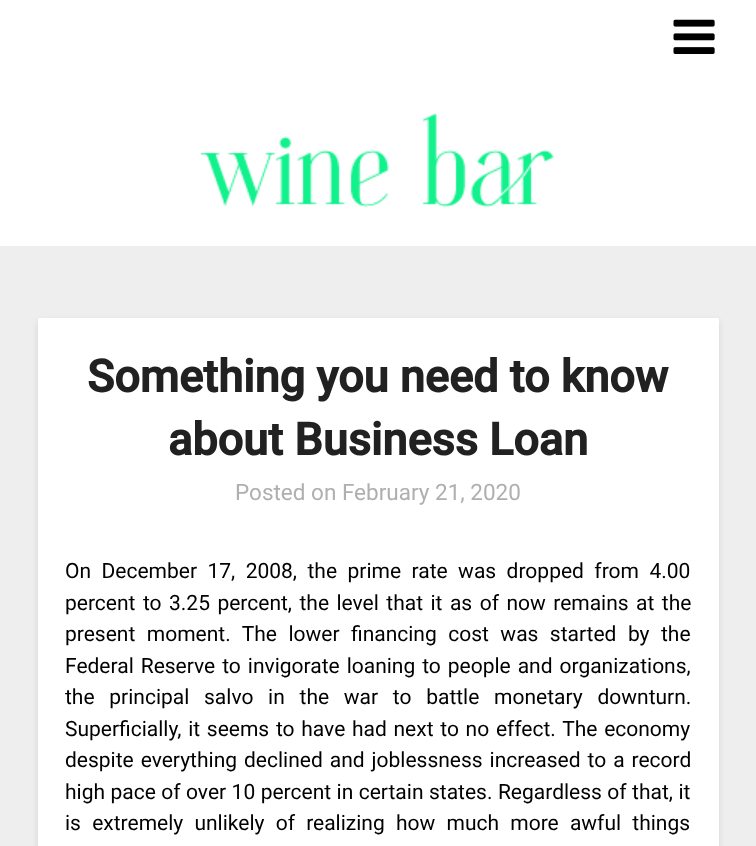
<?xml version="1.0" encoding="UTF-8"?>
<svg xmlns="http://www.w3.org/2000/svg" xmlns:xlink="http://www.w3.org/1999/xlink" width="756" height="846">
  <rect width="100%" height="100%" fill="#eeeeee" />
  <rect width="756" height="246" fill="#ffffff" />
  <image x="673" y="19" width="42" height="35" xlink:href="image1.png" />
  <image x="199" y="113" width="355" height="95" xlink:href="image2.png" />
  <rect x="38" y="321" width="681" height="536" rx="1.5" fill="#000000" fill-opacity="0.1" filter="blur(3px)" />
  <rect x="38" y="318" width="681" height="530" rx="1.5" fill="#ffffff" />
  <text x="87" y="392" style="font-family: Roboto; font-size: 45px; font-weight: bold; fill: #212121">Something you need to know</text>
  <text x="168" y="455" style="font-family: Roboto; font-size: 45px; font-weight: bold; fill: #212121">about Business Loan</text>
  <text x="235" y="500" style="font-family: Roboto; font-size: 22.5px; fill: #afafaf">Posted on February 21, 2020</text>
  <text x="65" y="578" word-spacing="5.25" style="font-family: Roboto; font-size: 21px; fill: #000000">On December 17, 2008, the prime rate was dropped from 4.00</text>
  <text x="65" y="610" word-spacing="2.25" style="font-family: Roboto; font-size: 21px; fill: #000000">percent to 3.25 percent, the level that it as of now remains at the</text>
  <text x="65" y="641" word-spacing="6.25" style="font-family: Roboto; font-size: 21px; fill: #000000">present moment. The lower financing cost was started by the</text>
  <text x="65" y="673" word-spacing="1.75" style="font-family: Roboto; font-size: 21px; fill: #000000">Federal Reserve to invigorate loaning to people and organizations,</text>
  <text x="65" y="704" word-spacing="9.5" style="font-family: Roboto; font-size: 21px; fill: #000000">the principal salvo in the war to battle monetary downturn.</text>
  <text x="65" y="736" word-spacing="1.5" style="font-family: Roboto; font-size: 21px; fill: #000000">Superficially, it seems to have had next to no effect. The economy</text>
  <text x="65" y="767" word-spacing="1.75" style="font-family: Roboto; font-size: 21px; fill: #000000">despite everything declined and joblessness increased to a record</text>
  <text x="65" y="799" word-spacing="0.25" style="font-family: Roboto; font-size: 21px; fill: #000000">high pace of over 10 percent in certain states. Regardless of that, it</text>
  <text x="65" y="830" word-spacing="6" style="font-family: Roboto; font-size: 21px; fill: #000000">is extremely unlikely of realizing how much more awful things</text>
</svg>
